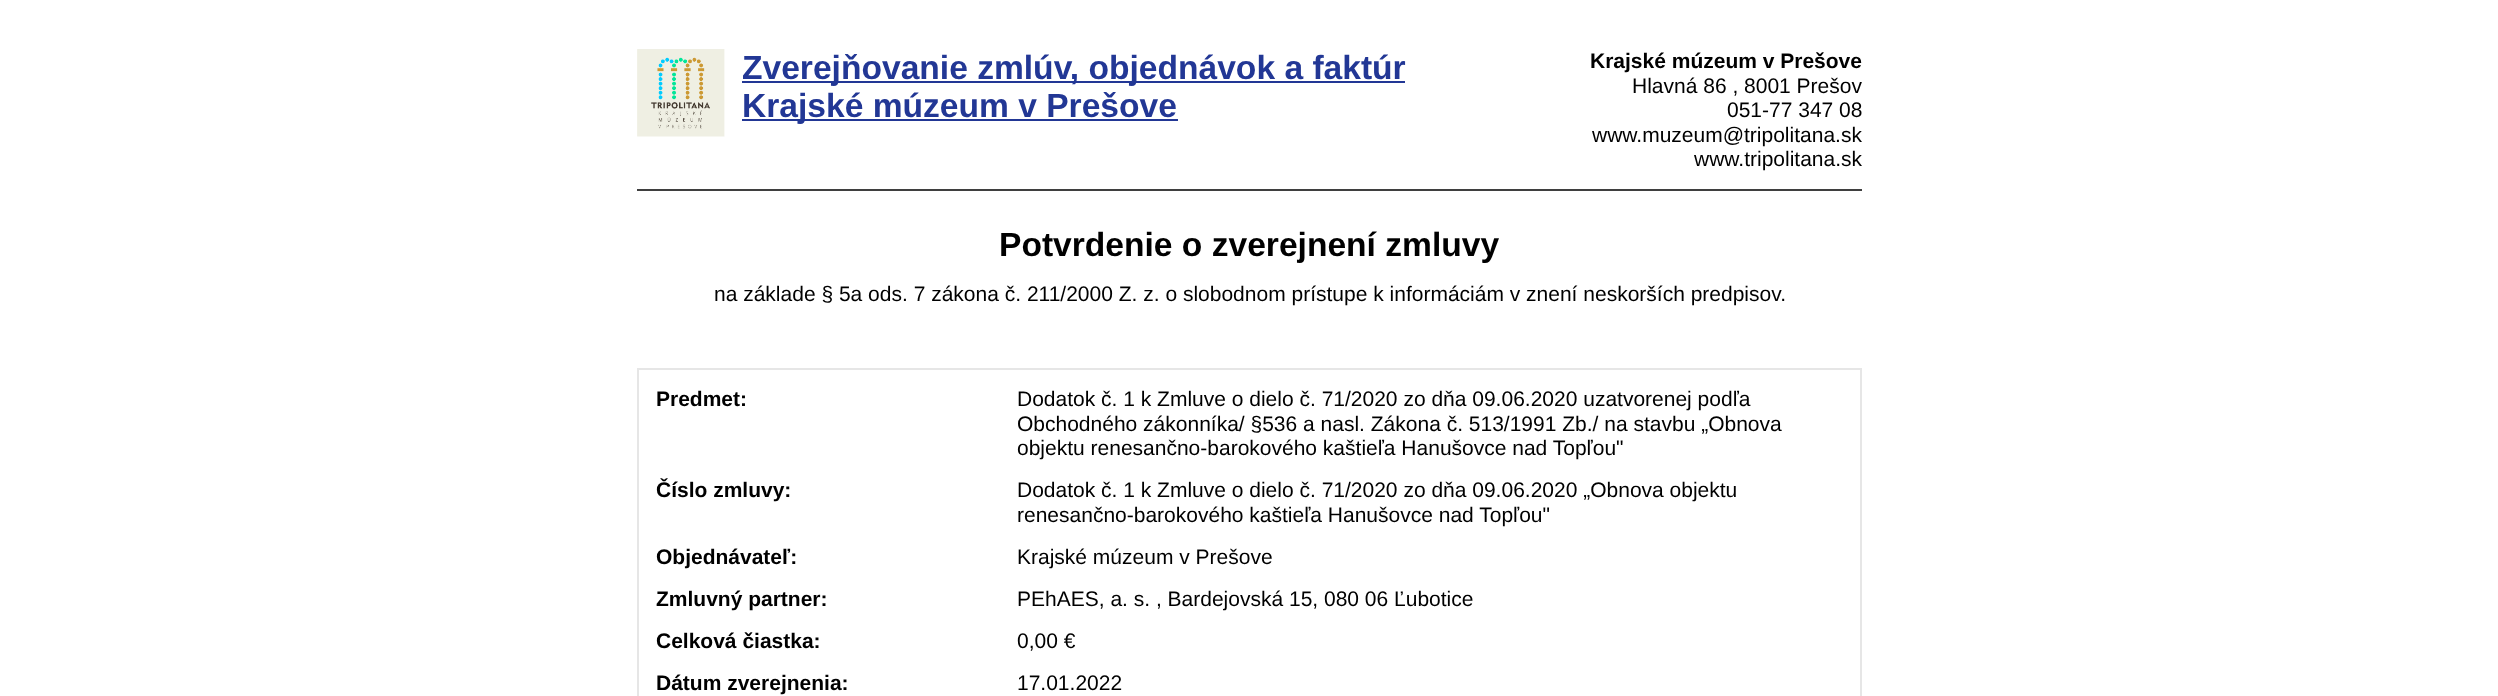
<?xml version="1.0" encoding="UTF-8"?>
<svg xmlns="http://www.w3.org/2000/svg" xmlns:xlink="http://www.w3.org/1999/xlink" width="2498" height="696">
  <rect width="100%" height="100%" fill="#ffffff" />
  <rect x="637" y="189" width="1225" height="2" fill="#3f3f3f" />
  <image x="637" y="49" width="88" height="88" xlink:href="image1.png" />
  <rect x="742" y="81" width="663" height="2" fill="#223795" />
  <rect x="742" y="119" width="436" height="2" fill="#223795" />
  <rect x="638" y="369" width="1223" height="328" fill="none" stroke="#e6e6e6" stroke-width="2" />
  <text x="742" y="79" style="font-family: Liberation Sans; font-size: 33.6px; font-weight: bold; fill: #223795">Zverejňovanie zmlúv, objednávok a faktúr</text>
  <text x="742" y="117" style="font-family: Liberation Sans; font-size: 33.6px; font-weight: bold; fill: #223795">Krajské múzeum v Prešove</text>
  <text x="1590" y="68" style="font-family: Liberation Sans; font-size: 21px; font-weight: bold; fill: #000000">Krajské múzeum v Prešove</text>
  <text x="1632" y="93" style="font-family: Liberation Sans; font-size: 21px; fill: #000000">Hlavná 86 , 8001 Prešov</text>
  <text x="1727" y="117" style="font-family: Liberation Sans; font-size: 21px; fill: #000000">051-77 347 08</text>
  <text x="1592" y="142" style="font-family: Liberation Sans; font-size: 21px; fill: #000000">www.muzeum@tripolitana.sk</text>
  <text x="1694" y="166" style="font-family: Liberation Sans; font-size: 21px; fill: #000000">www.tripolitana.sk</text>
  <text x="999" y="256" style="font-family: Liberation Sans; font-size: 33.6px; font-weight: bold; fill: #000000">Potvrdenie o zverejnení zmluvy</text>
  <text x="714" y="301" style="font-family: Liberation Sans; font-size: 21px; fill: #000000">na základe § 5a ods. 7 zákona č. 211/2000 Z. z. o slobodnom prístupe k informáciám v znení neskorších predpisov.</text>
  <text x="656" y="406" style="font-family: Liberation Sans; font-size: 21px; font-weight: bold; fill: #000000">Predmet:</text>
  <text x="1017" y="406" style="font-family: Liberation Sans; font-size: 21px; fill: #000000">Dodatok č. 1 k Zmluve o dielo č. 71/2020 zo dňa 09.06.2020 uzatvorenej podľa</text>
  <text x="1017" y="431" style="font-family: Liberation Sans; font-size: 21px; fill: #000000">Obchodného zákonníka/ §536 a nasl. Zákona č. 513/1991 Zb./ na stavbu „Obnova</text>
  <text x="1017" y="455" style="font-family: Liberation Sans; font-size: 21px; fill: #000000">objektu renesančno-barokového kaštieľa Hanušovce nad Topľou"</text>
  <text x="656" y="497" style="font-family: Liberation Sans; font-size: 21px; font-weight: bold; fill: #000000">Číslo zmluvy:</text>
  <text x="1017" y="497" style="font-family: Liberation Sans; font-size: 21px; fill: #000000">Dodatok č. 1 k Zmluve o dielo č. 71/2020 zo dňa 09.06.2020 „Obnova objektu</text>
  <text x="1017" y="522" style="font-family: Liberation Sans; font-size: 21px; fill: #000000">renesančno-barokového kaštieľa Hanušovce nad Topľou"</text>
  <text x="656" y="564" style="font-family: Liberation Sans; font-size: 21px; font-weight: bold; fill: #000000">Objednávateľ:</text>
  <text x="1017" y="564" style="font-family: Liberation Sans; font-size: 21px; fill: #000000">Krajské múzeum v Prešove</text>
  <text x="656" y="606" style="font-family: Liberation Sans; font-size: 21px; font-weight: bold; fill: #000000">Zmluvný partner:</text>
  <text x="1017" y="606" style="font-family: Liberation Sans; font-size: 21px; fill: #000000">PEhAES, a. s. , Bardejovská 15, 080 06 Ľubotice</text>
  <text x="656" y="648" style="font-family: Liberation Sans; font-size: 21px; font-weight: bold; fill: #000000">Celková čiastka:</text>
  <text x="1017" y="648" style="font-family: Liberation Sans; font-size: 21px; fill: #000000">0,00 €</text>
  <text x="656" y="690" style="font-family: Liberation Sans; font-size: 21px; font-weight: bold; fill: #000000">Dátum zverejnenia:</text>
  <text x="1017" y="690" style="font-family: Liberation Sans; font-size: 21px; fill: #000000">17.01.2022</text>
</svg>
